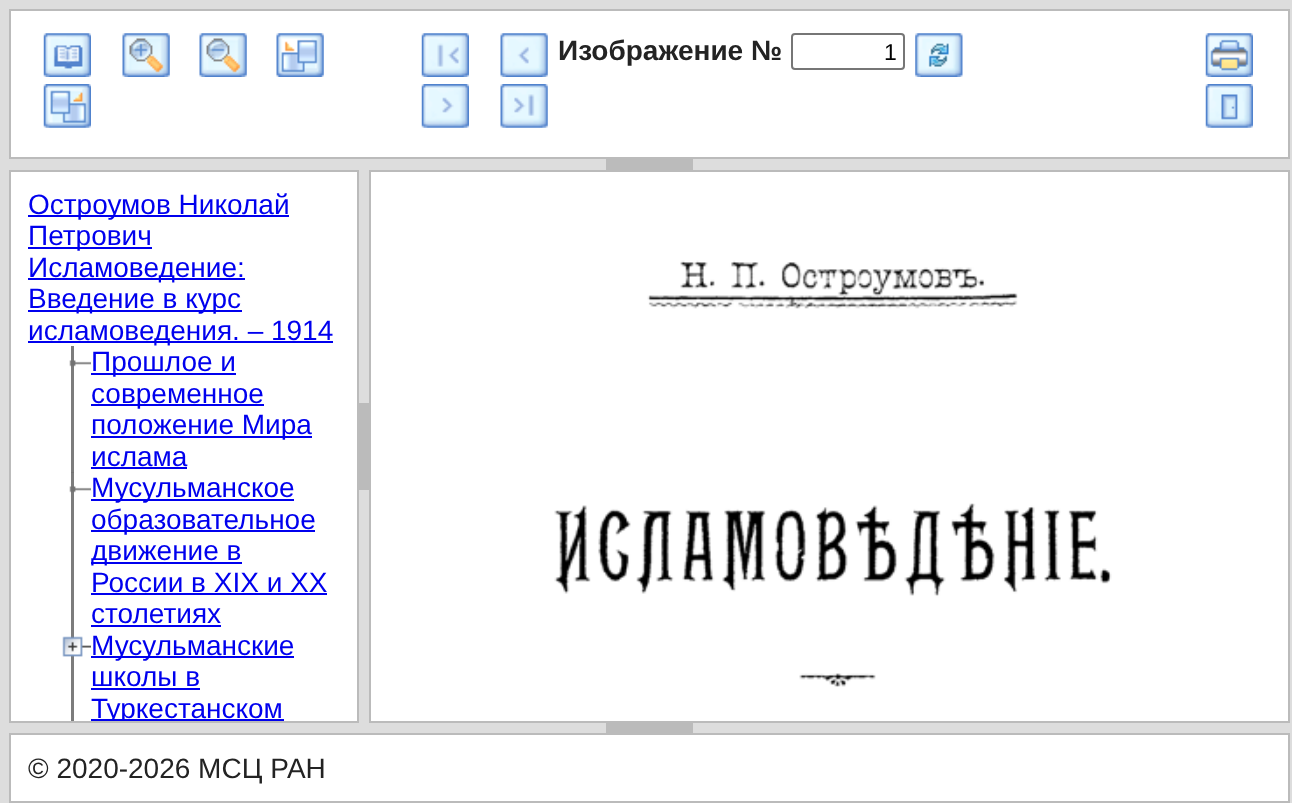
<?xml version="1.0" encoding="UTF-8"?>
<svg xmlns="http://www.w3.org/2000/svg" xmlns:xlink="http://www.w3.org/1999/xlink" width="1292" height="803">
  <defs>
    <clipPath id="clip1"><rect x="11" y="172" width="346" height="549" /></clipPath>
  </defs>
  <rect width="100%" height="100%" fill="#dddddd" />
  <rect x="10" y="10" width="1279" height="148" fill="#ffffff" stroke="#bbbbbb" stroke-width="2" />
  <image x="43" y="33" width="48" height="44" xlink:href="image1.png" />
  <image x="122" y="33" width="48" height="44" xlink:href="image2.png" />
  <image x="199" y="33" width="48" height="44" xlink:href="image3.png" />
  <image x="276" y="33" width="48" height="44" xlink:href="image4.png" />
  <image x="43" y="84" width="48" height="44" xlink:href="image5.png" />
  <image x="421" y="33" width="48" height="44" xlink:href="image6.png" />
  <image x="500" y="33" width="48" height="44" xlink:href="image7.png" />
  <rect x="792" y="34" width="112" height="35" rx="3" fill="none" stroke="#767676" stroke-width="2" />
  <image x="915" y="33" width="48" height="44" xlink:href="image8.png" />
  <image x="421" y="84" width="48" height="44" xlink:href="image9.png" />
  <image x="500" y="84" width="48" height="44" xlink:href="image10.png" />
  <image x="1205" y="33" width="48" height="44" xlink:href="image11.png" />
  <image x="1205" y="84" width="48" height="44" xlink:href="image12.png" />
  <rect x="606" y="159" width="87" height="11" fill="#bbbbbb" />
  <rect x="11" y="172" width="346" height="549" fill="#ffffff" />
  <rect x="71" y="472" width="3" height="158" fill="#7c7c7c" />
  <rect x="10" y="171" width="348" height="551" fill="none" stroke="#bbbbbb" stroke-width="2" />
  <rect x="28" y="215" width="261" height="2" fill="#0000ee" />
  <rect x="28" y="247" width="124" height="2" fill="#0000ee" />
  <rect x="28" y="278" width="217" height="2" fill="#0000ee" />
  <rect x="28" y="310" width="214" height="2" fill="#0000ee" />
  <rect x="28" y="341" width="305" height="2" fill="#0000ee" />
  <rect x="71" y="346" width="3" height="127" fill="#7c7c7c" />
  <rect x="71" y="472" width="3" height="1" fill="#737373" />
  <image x="69" y="360" width="22" height="7" xlink:href="image13.png" />
  <rect x="91" y="373" width="145" height="2" fill="#0000ee" />
  <rect x="91" y="404" width="173" height="2" fill="#0000ee" />
  <rect x="91" y="436" width="221" height="2" fill="#0000ee" />
  <rect x="91" y="467" width="96" height="2" fill="#0000ee" />
  <image x="69" y="486" width="22" height="7" xlink:href="image13.png" />
  <rect x="91" y="499" width="203" height="2" fill="#0000ee" />
  <rect x="91" y="530" width="224" height="2" fill="#0000ee" />
  <rect x="91" y="562" width="151" height="2" fill="#0000ee" />
  <rect x="91" y="593" width="236" height="2" fill="#0000ee" />
  <rect x="91" y="625" width="130" height="2" fill="#0000ee" />
  <rect x="71" y="630" width="3" height="91" fill="#7c7c7c" />
  <image x="62" y="636" width="29" height="21" xlink:href="image14.png" />
  <rect x="91" y="656" width="203" height="2" fill="#0000ee" />
  <rect x="91" y="688" width="109" height="2" fill="#0000ee" />
  <rect x="91" y="719" width="193" height="2" fill="#0000ee" />
  <rect x="359" y="403" width="10" height="87" fill="#bbbbbb" />
  <rect x="370" y="171" width="919" height="551" fill="#ffffff" stroke="#bbbbbb" stroke-width="2" />
  <image x="554" y="260" width="558" height="427" xlink:href="image15.png" />
  <rect x="606" y="723" width="87" height="10" fill="#bbbbbb" />
  <rect x="10" y="734" width="1279" height="68" fill="#ffffff" stroke="#bbbbbb" stroke-width="2" />
  <text x="558" y="60" style="font-family: Liberation Sans; font-size: 28px; font-weight: bold; fill: #232323">Изображение №</text>
  <text x="884" y="60" style="font-family: Liberation Sans; font-size: 23px; fill: #000000">1</text>
  <text x="28" y="214" style="font-family: Liberation Sans; font-size: 28px; fill: #0000ee">Остроумов Николай</text>
  <text x="28" y="245" style="font-family: Liberation Sans; font-size: 28px; fill: #0000ee">Петрович</text>
  <text x="28" y="277" style="font-family: Liberation Sans; font-size: 28px; fill: #0000ee">Исламоведение:</text>
  <text x="28" y="308" style="font-family: Liberation Sans; font-size: 28px; fill: #0000ee">Введение в курс</text>
  <text x="28" y="340" style="font-family: Liberation Sans; font-size: 28px; fill: #0000ee">исламоведения. – 1914</text>
  <text x="91" y="371" style="font-family: Liberation Sans; font-size: 28px; fill: #0000ee">Прошлое и</text>
  <text x="91" y="403" style="font-family: Liberation Sans; font-size: 28px; fill: #0000ee">современное</text>
  <text x="91" y="434" style="font-family: Liberation Sans; font-size: 28px; fill: #0000ee">положение Мира</text>
  <text x="91" y="466" style="font-family: Liberation Sans; font-size: 28px; fill: #0000ee">ислама</text>
  <text x="91" y="497" style="font-family: Liberation Sans; font-size: 28px; fill: #0000ee">Мусульманское</text>
  <text x="91" y="529" style="font-family: Liberation Sans; font-size: 28px; fill: #0000ee">образовательное</text>
  <text x="91" y="560" style="font-family: Liberation Sans; font-size: 28px; fill: #0000ee">движение в</text>
  <text x="91" y="592" style="font-family: Liberation Sans; font-size: 28px; fill: #0000ee">России в XIX и XX</text>
  <text x="91" y="623" style="font-family: Liberation Sans; font-size: 28px; fill: #0000ee">столетиях</text>
  <text x="91" y="655" style="font-family: Liberation Sans; font-size: 28px; fill: #0000ee">Мусульманские</text>
  <text x="91" y="686" style="font-family: Liberation Sans; font-size: 28px; fill: #0000ee">школы в</text>
  <g clip-path="url(#clip1)">
    <text x="91" y="718" style="font-family: Liberation Sans; font-size: 28px; fill: #0000ee">Туркестанском</text>
  </g>
  <text x="28" y="778" style="font-family: Liberation Sans; font-size: 28px; fill: #232323">© 2020-2026 МСЦ РАН</text>
</svg>
